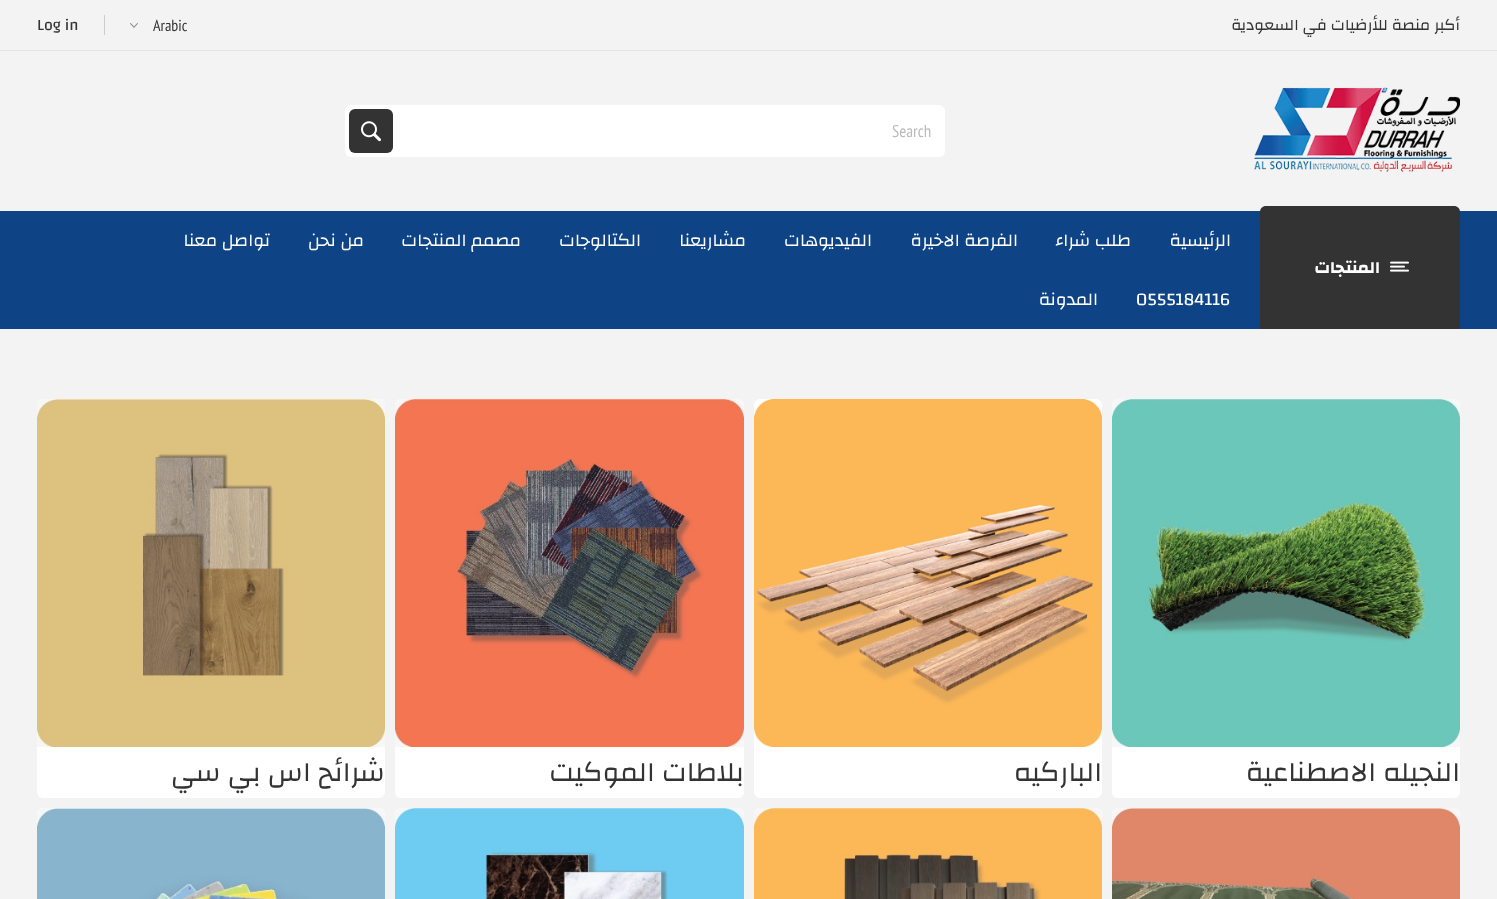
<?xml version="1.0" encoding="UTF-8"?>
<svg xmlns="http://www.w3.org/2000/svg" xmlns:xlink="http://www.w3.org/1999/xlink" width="1497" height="899">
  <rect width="100%" height="100%" fill="#f3f3f3" />
  <rect x="104" y="15" width="1" height="20" fill="#cccccc" />
  <image x="130" y="23" width="8" height="5" xlink:href="image1.png" />
  <rect y="50" width="1497" height="1" fill="#e3e3e3" />
  <image x="1254" y="87" width="206" height="85" xlink:href="image2.png" />
  <rect x="345" y="105" width="600" height="52" rx="6" fill="#ffffff" />
  <rect x="349" y="109" width="44" height="44" rx="6" fill="#333333" />
  <image x="361" y="121" width="20" height="21" xlink:href="image3.png" />
  <rect y="211" width="1497" height="118" fill="#0e4385" />
  <path d="M 1266 206 h 188 c 3.5 0 6 2.5 6 6 v 117 h -200 v -117 c 0 -3.5 2.5 -6 6 -6 z" fill="#333333" />
  <image x="1390" y="261" width="19" height="11" xlink:href="image4.png" />
  <rect x="1112" y="399" width="348" height="399" rx="6" fill="#ffffff" />
  <image x="1112" y="399" width="348" height="348" xlink:href="image5.png" />
  <rect x="754" y="399" width="348" height="399" rx="6" fill="#ffffff" />
  <image x="754" y="399" width="348" height="348" xlink:href="image6.png" />
  <rect x="395" y="399" width="349" height="399" rx="6" fill="#ffffff" />
  <image x="395" y="399" width="349" height="348" xlink:href="image7.png" />
  <rect x="37" y="399" width="348" height="399" rx="6" fill="#ffffff" />
  <image x="37" y="399" width="348" height="348" xlink:href="image8.png" />
  <rect x="1112" y="808" width="348" height="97" rx="6" fill="#ffffff" />
  <image x="1112" y="808" width="348" height="91" xlink:href="image9.png" />
  <rect x="754" y="808" width="348" height="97" rx="6" fill="#ffffff" />
  <image x="754" y="808" width="348" height="91" xlink:href="image10.png" />
  <rect x="395" y="808" width="349" height="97" rx="6" fill="#ffffff" />
  <image x="395" y="808" width="349" height="91" xlink:href="image11.png" />
  <rect x="37" y="808" width="348" height="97" rx="6" fill="#ffffff" />
  <image x="37" y="808" width="348" height="91" xlink:href="image12.png" />
  <text x="1460" y="30" style="font-family: Changa; font-size: 16px; direction: rtl; fill: #333333">أكبر منصة للأرضيات في السعودية</text>
  <text x="153" y="31" style="font-family: PT Sans Narrow; font-size: 16px; fill: #333333">Arabic</text>
  <text x="37" y="30" style="font-family: Changa; font-size: 16px; fill: #333333">Log in</text>
  <text x="892" y="137" style="font-family: PT Sans Narrow; font-size: 17px; fill: #bbbbbb">Search</text>
  <text x="1380" y="273" style="font-family: Changa; font-size: 17px; font-weight: bold; direction: rtl; fill: #ffffff">المنتجات</text>
  <text x="1231" y="246" style="font-family: Changa; font-size: 18px; direction: rtl; fill: #ffffff">الرئيسية</text>
  <text x="1131" y="246" style="font-family: Changa; font-size: 18px; direction: rtl; fill: #ffffff">طلب شراء</text>
  <text x="1018" y="246" style="font-family: Changa; font-size: 18px; direction: rtl; fill: #ffffff">الفرصة الاخيرة</text>
  <text x="872" y="246" style="font-family: Changa; font-size: 18px; direction: rtl; fill: #ffffff">الفيديوهات</text>
  <text x="746" y="246" style="font-family: Changa; font-size: 18px; direction: rtl; fill: #ffffff">مشاريعنا</text>
  <text x="641" y="246" style="font-family: Changa; font-size: 18px; direction: rtl; fill: #ffffff">الكتالوجات</text>
  <text x="521" y="246" style="font-family: Changa; font-size: 18px; direction: rtl; fill: #ffffff">مصمم المنتجات</text>
  <text x="364" y="246" style="font-family: Changa; font-size: 18px; direction: rtl; fill: #ffffff">من نحن</text>
  <text x="270" y="246" style="font-family: Changa; font-size: 18px; direction: rtl; fill: #ffffff">تواصل معنا</text>
  <text x="1136" y="305" style="font-family: Changa; font-size: 18px; fill: #ffffff">0555184116</text>
  <text x="1098" y="305" style="font-family: Changa; font-size: 18px; direction: rtl; fill: #ffffff">المدونة</text>
  <text x="1460" y="781" style="font-family: Changa; font-size: 28px; direction: rtl; fill: #333333">النجيله الاصطناعية</text>
  <text x="1102" y="781" style="font-family: Changa; font-size: 28px; direction: rtl; fill: #333333">الباركيه</text>
  <text x="744" y="781" style="font-family: Changa; font-size: 28px; direction: rtl; fill: #333333">بلاطات الموكيت</text>
  <text x="385" y="781" style="font-family: Changa; font-size: 28px; direction: rtl; fill: #333333">شرائح اس بي سي</text>
</svg>
